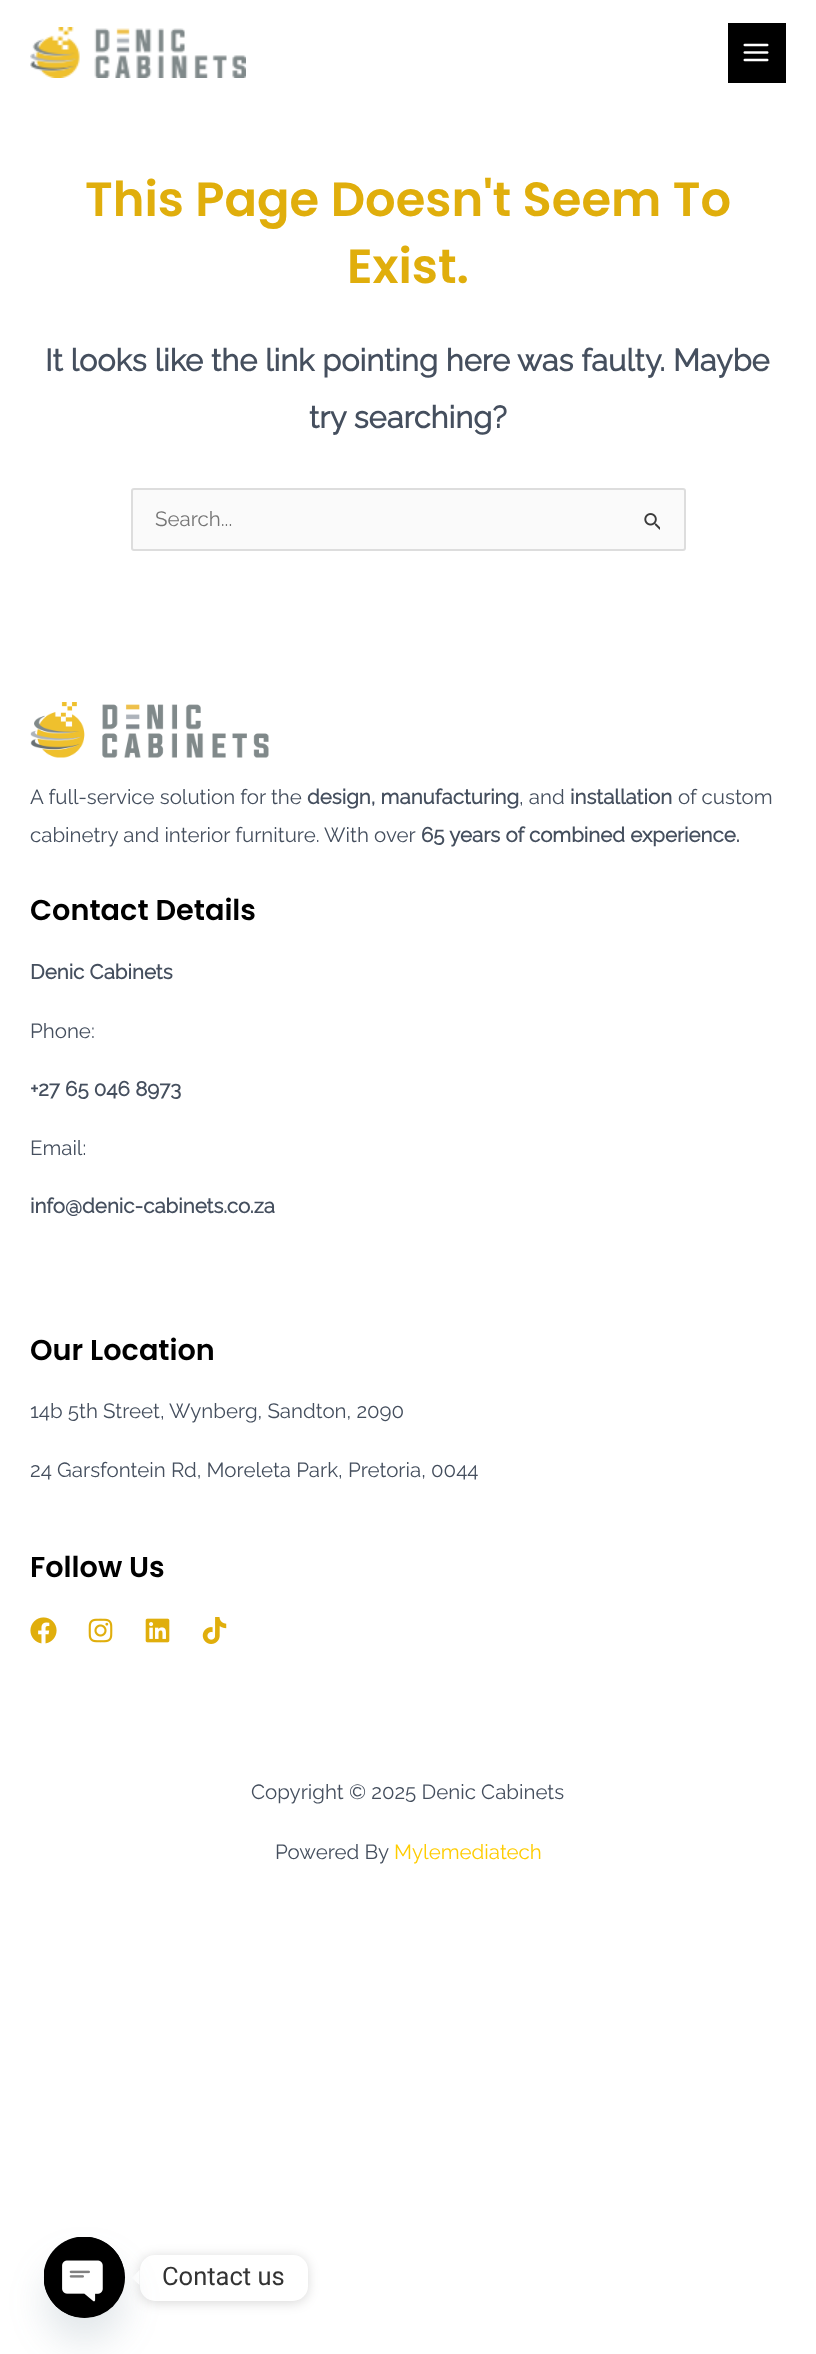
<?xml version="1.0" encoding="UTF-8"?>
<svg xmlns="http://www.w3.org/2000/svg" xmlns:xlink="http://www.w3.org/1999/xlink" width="816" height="2354">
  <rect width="100%" height="100%" fill="#ffffff" />
  <image x="30" y="27" width="216" height="51" xlink:href="image1.png" />
  <rect x="728" y="23" width="58" height="60" fill="#000000" />
  <image x="743" y="43" width="26" height="19" xlink:href="image2.png" />
  <rect x="132" y="489" width="553" height="61" rx="2" fill="#fafafa" stroke="#dddddd" stroke-width="2" />
  <image x="644" y="513" width="16" height="17" xlink:href="image3.png" />
  <image x="30" y="702" width="239" height="56" xlink:href="image4.png" />
  <image x="30" y="1617" width="27" height="27" xlink:href="image5.png" />
  <image x="88" y="1618" width="25" height="25" xlink:href="image6.png" />
  <image x="145" y="1618" width="25" height="25" xlink:href="image7.png" />
  <image x="202" y="1617" width="25" height="27" xlink:href="image8.png" />
  <rect x="140" y="2256" width="168" height="47" rx="15" fill="#000000" fill-opacity="0.15" filter="blur(6px)" />
  <rect x="140" y="2255" width="168" height="46" rx="15" fill="#ffffff" />
  <path d="M 139.5 2270 v 15 l -7.5 -7 z" fill="#ffffff" />
  <rect x="44" y="2261" width="81" height="81" rx="40.5" fill="#49687e" fill-opacity="0.16" filter="blur(18px)" />
  <circle cx="84.5" cy="2277.5" r="40.5" fill="#000000" />
  <image x="44" y="2237" width="81" height="81" xlink:href="image9.png" />
  <text x="85" y="216" style="font-family: Poppins; font-size: 48px; font-weight: 600; fill: #e0ae0c">This Page Doesn't Seem To</text>
  <text x="347" y="283" style="font-family: Poppins; font-size: 48px; font-weight: 600; fill: #e0ae0c">Exist.</text>
  <text x="45" y="371" style="font-family: Raleway; font-size: 30.75px; font-weight: bold; fill: #454f5e">It looks like the link pointing here was faulty. Maybe</text>
  <text x="309" y="428" style="font-family: Raleway; font-size: 30.75px; font-weight: bold; fill: #454f5e">try searching?</text>
  <text x="155" y="526" style="font-family: Raleway; font-size: 20.5px; font-weight: 100; fill: #757575">Search...</text>
  <text x="30" y="804" style="font-family: Raleway; font-size: 20.5px; font-weight: 100; fill: #454f5e">A full-service solution for the</text>
  <text x="307" y="804" style="font-family: Raleway; font-size: 20.5px; font-weight: bold; fill: #454f5e">design, manufacturing</text>
  <text x="519" y="804" style="font-family: Raleway; font-size: 20.5px; font-weight: 100; fill: #454f5e">, and</text>
  <text x="570" y="804" style="font-family: Raleway; font-size: 20.5px; font-weight: bold; fill: #454f5e">installation</text>
  <text x="678" y="804" style="font-family: Raleway; font-size: 20.5px; font-weight: 100; fill: #454f5e">of custom</text>
  <text x="30" y="842" style="font-family: Raleway; font-size: 20.5px; font-weight: 100; fill: #454f5e">cabinetry and interior furniture. With over</text>
  <text x="421" y="842" style="font-family: Raleway; font-size: 20.5px; font-weight: bold; fill: #454f5e">65 years of combined experience.</text>
  <text x="30" y="920" style="font-family: Poppins; font-size: 28.75px; font-weight: 600; fill: #000000">Contact Details</text>
  <text x="30" y="979" style="font-family: Raleway; font-size: 20.5px; font-weight: bold; fill: #454f5e">Denic Cabinets</text>
  <text x="30" y="1038" style="font-family: Raleway; font-size: 20.5px; font-weight: 100; fill: #454f5e">Phone:</text>
  <text x="30" y="1096" style="font-family: Raleway; font-size: 20.5px; font-weight: bold; fill: #454f5e">+27 65 046 8973</text>
  <text x="30" y="1155" style="font-family: Raleway; font-size: 20.5px; font-weight: 100; fill: #454f5e">Email:</text>
  <text x="30" y="1213" style="font-family: Raleway; font-size: 20.5px; font-weight: bold; fill: #454f5e">info@denic-cabinets.co.za</text>
  <text x="30" y="1360" style="font-family: Poppins; font-size: 28.75px; font-weight: 600; fill: #000000">Our Location</text>
  <text x="30" y="1418" style="font-family: Raleway; font-size: 20.5px; font-weight: 100; fill: #454f5e">14b 5th Street, Wynberg, Sandton, 2090</text>
  <text x="30" y="1477" style="font-family: Raleway; font-size: 20.5px; font-weight: 100; fill: #454f5e">24 Garsfontein Rd, Moreleta Park, Pretoria, 0044</text>
  <text x="30" y="1577" style="font-family: Poppins; font-size: 28.75px; font-weight: 600; fill: #000000">Follow Us</text>
  <text x="251" y="1799" style="font-family: Raleway; font-size: 20.5px; font-weight: 100; fill: #454f5e">Copyright © 2025 Denic Cabinets</text>
  <text x="275" y="1859" style="font-family: Raleway; font-size: 20.5px; font-weight: 100; fill: #454f5e">Powered By</text>
  <text x="394" y="1859" style="font-family: Raleway; font-size: 20.5px; font-weight: 100; fill: #ffcc00">Mylemediatech</text>
  <text x="162" y="2285" style="font-family: Roboto; font-size: 25.5px; fill: #333333">Contact us</text>
</svg>
